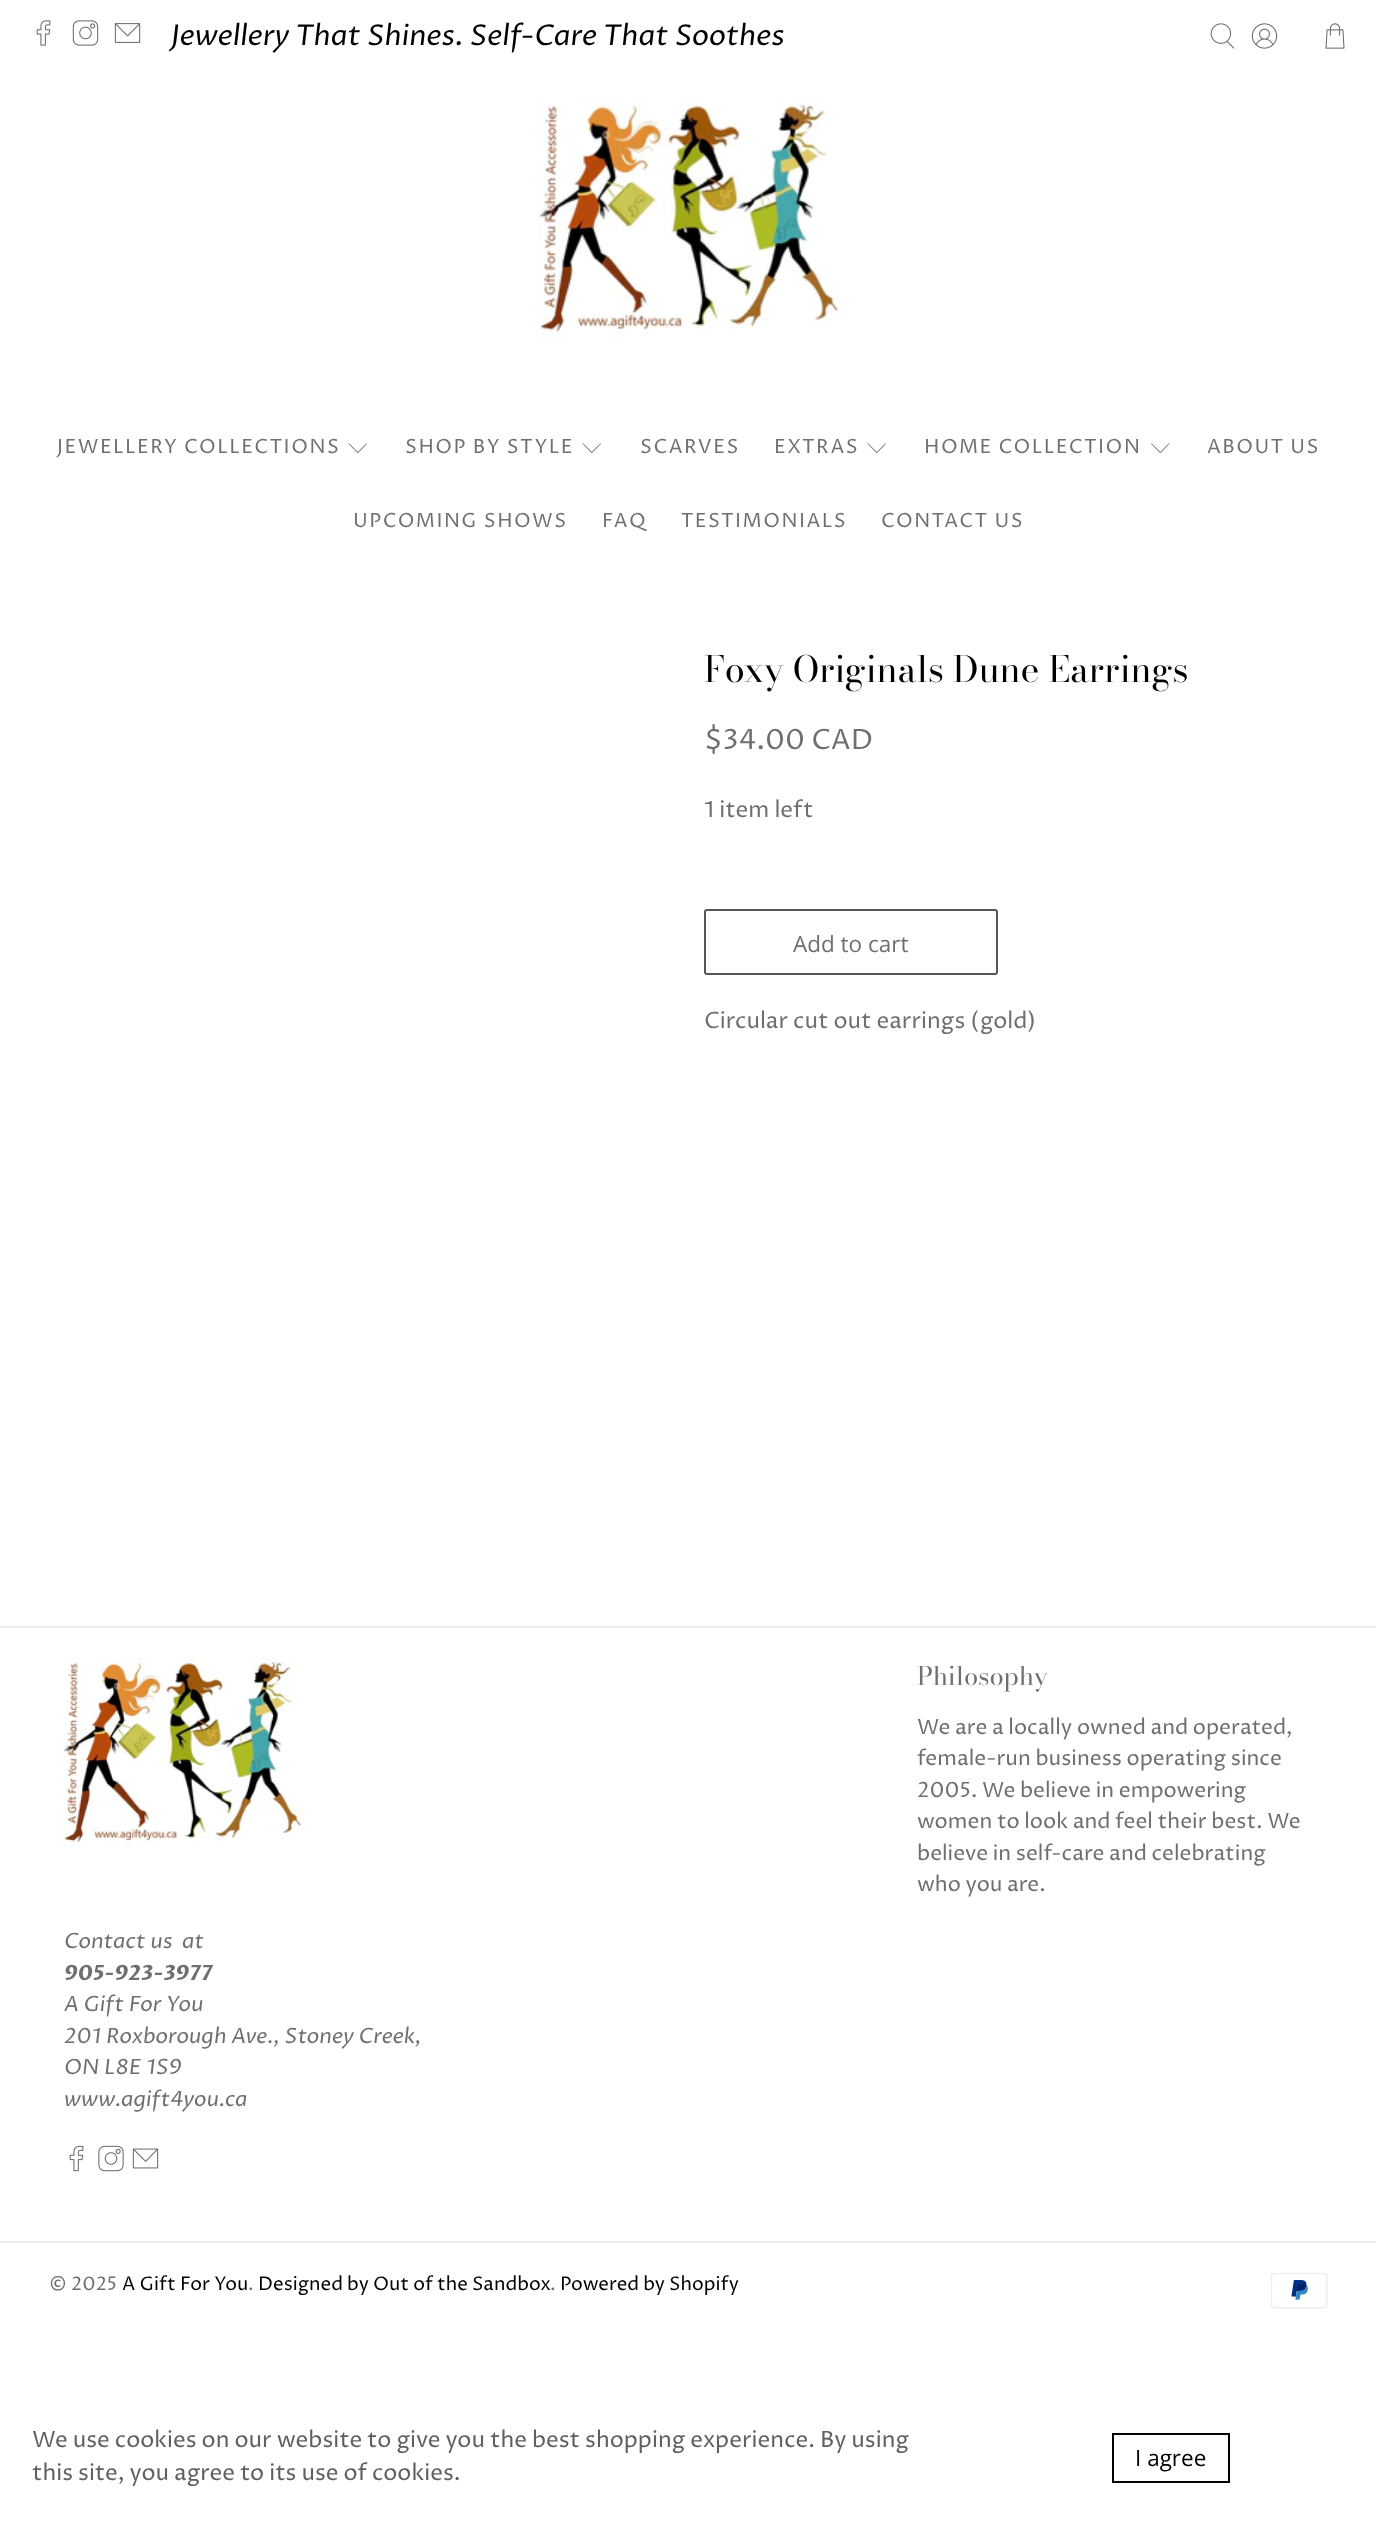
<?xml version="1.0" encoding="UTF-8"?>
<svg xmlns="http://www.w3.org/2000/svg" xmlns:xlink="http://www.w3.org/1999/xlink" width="1376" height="2521">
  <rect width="100%" height="100%" fill="#ffffff" />
  <image x="36" y="20" width="15" height="26" xlink:href="image1.png" />
  <image x="72" y="20" width="27" height="26" xlink:href="image2.png" />
  <image x="114" y="23" width="27" height="20" xlink:href="image3.png" />
  <image x="1210" y="23" width="25" height="26" xlink:href="image4.png" />
  <image x="1251" y="23" width="27" height="26" xlink:href="image5.png" />
  <image x="1325" y="23" width="20" height="26" xlink:href="image6.png" />
  <image x="538" y="99" width="301" height="240" xlink:href="image7.png" />
  <image x="348" y="443" width="19" height="10" xlink:href="image8.png" />
  <image x="582" y="443" width="19" height="10" xlink:href="image8.png" />
  <image x="867" y="443" width="19" height="10" xlink:href="image8.png" />
  <image x="1151" y="443" width="19" height="10" xlink:href="image9.png" />
  <rect x="705" y="910" width="292" height="64" rx="2" fill="none" stroke="#565656" stroke-width="2" />
  <rect y="1626" width="1376" height="2" fill="#ededed" />
  <rect y="2241" width="1376" height="2" fill="#ededed" />
  <image x="63" y="1657" width="239" height="192" xlink:href="image10.png" />
  <image x="69" y="2145" width="15" height="27" xlink:href="image11.png" />
  <image x="98" y="2145" width="26" height="27" xlink:href="image12.png" />
  <image x="132" y="2148" width="27" height="21" xlink:href="image13.png" />
  <image x="1271" y="2273" width="57" height="36" xlink:href="image14.png" />
  <rect x="1113" y="2434" width="116" height="48" fill="none" stroke="#000000" stroke-width="2" />
  <text x="171" y="45" style="font-family: Proza Libre; font-size: 28.5px; font-style: italic; fill: #000000">Jewellery That Shines. Self-Care That Soothes</text>
  <text x="57" y="453" style="font-family: Proza Libre; font-size: 19.5px; letter-spacing: 1.5px; fill: #6f6f6f">JEWELLERY COLLECTIONS</text>
  <text x="405" y="453" style="font-family: Proza Libre; font-size: 19.5px; letter-spacing: 1.5px; fill: #6f6f6f">SHOP BY STYLE</text>
  <text x="640" y="453" style="font-family: Proza Libre; font-size: 19.5px; letter-spacing: 1.5px; fill: #6f6f6f">SCARVES</text>
  <text x="774" y="453" style="font-family: Proza Libre; font-size: 19.5px; letter-spacing: 1.5px; fill: #6f6f6f">EXTRAS</text>
  <text x="924" y="453" style="font-family: Proza Libre; font-size: 19.5px; letter-spacing: 1.5px; fill: #6f6f6f">HOME COLLECTION</text>
  <text x="1207" y="453" style="font-family: Proza Libre; font-size: 19.5px; letter-spacing: 1.5px; fill: #6f6f6f">ABOUT US</text>
  <text x="353" y="527" style="font-family: Proza Libre; font-size: 19.5px; letter-spacing: 1.5px; fill: #6f6f6f">UPCOMING SHOWS</text>
  <text x="602" y="527" style="font-family: Proza Libre; font-size: 19.5px; letter-spacing: 1.5px; fill: #6f6f6f">FAQ</text>
  <text x="681" y="527" style="font-family: Proza Libre; font-size: 19.5px; letter-spacing: 1.5px; fill: #6f6f6f">TESTIMONIALS</text>
  <text x="881" y="527" style="font-family: Proza Libre; font-size: 19.5px; letter-spacing: 1.5px; fill: #6f6f6f">CONTACT US</text>
  <text x="704" y="682" style="font-family: Bodoni Moda; font-size: 36px; fill: #000000">Foxy Originals Dune Earrings</text>
  <text x="704" y="749" style="font-family: Proza Libre; font-size: 28px; fill: #6f6f6f">$34.00 CAD</text>
  <text x="704" y="817" style="font-family: Proza Libre; font-size: 22.5px; fill: #6f6f6f">1 item left</text>
  <text x="793" y="952" style="font-family: Open Sans; font-size: 22.5px; fill: #6f6f6f">Add to cart</text>
  <text x="704" y="1028" style="font-family: Proza Libre; font-size: 22.5px; fill: #6f6f6f">Circular cut out earrings (gold)</text>
  <text x="917" y="1685" style="font-family: 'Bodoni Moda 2'; font-size: 25.5px; fill: #6f6f6f">Philosophy</text>
  <text x="917" y="1734" style="font-family: Proza Libre; font-size: 21px; fill: #6f6f6f">We are a locally owned and operated,</text>
  <text x="917" y="1765" style="font-family: Proza Libre; font-size: 21px; fill: #6f6f6f">female-run business operating since</text>
  <text x="917" y="1797" style="font-family: Proza Libre; font-size: 21px; fill: #6f6f6f">2005. We believe in empowering</text>
  <text x="917" y="1828" style="font-family: Proza Libre; font-size: 21px; fill: #6f6f6f">women to look and feel their best. We</text>
  <text x="917" y="1860" style="font-family: Proza Libre; font-size: 21px; fill: #6f6f6f">believe in self-care and celebrating</text>
  <text x="917" y="1891" style="font-family: Proza Libre; font-size: 21px; fill: #6f6f6f">who you are.</text>
  <text x="64" y="1948" style="font-family: Proza Libre; font-size: 21px; font-style: italic; fill: #6f6f6f">Contact us</text>
  <text x="182" y="1948" style="font-family: Proza Libre; font-size: 21px; font-style: italic; fill: #6f6f6f">at</text>
  <text x="64" y="1980" style="font-family: Proza Libre; font-size: 21px; font-weight: bold; font-style: italic; fill: #6f6f6f">905-923-3977</text>
  <text x="64" y="2011" style="font-family: Proza Libre; font-size: 21px; font-style: italic; fill: #6f6f6f">A Gift For You</text>
  <text x="64" y="2043" style="font-family: Proza Libre; font-size: 21px; font-style: italic; fill: #6f6f6f">201 Roxborough Ave., Stoney Creek,</text>
  <text x="64" y="2074" style="font-family: Proza Libre; font-size: 21px; font-style: italic; fill: #6f6f6f">ON L8E 1S9</text>
  <text x="64" y="2106" style="font-family: Proza Libre; font-size: 21px; font-style: italic; fill: #6f6f6f">www.agift4you.ca</text>
  <text x="49" y="2290" style="font-family: Proza Libre; font-size: 18.75px; fill: #6f6f6f">© 2025</text>
  <text x="122" y="2290" style="font-family: Proza Libre; font-size: 18.75px; fill: #000000">A Gift For You</text>
  <text x="248" y="2290" style="font-family: Proza Libre; font-size: 18.75px; fill: #6f6f6f">.</text>
  <text x="258" y="2290" style="font-family: Proza Libre; font-size: 18.75px; fill: #000000">Designed by Out of the Sandbox</text>
  <text x="550" y="2290" style="font-family: Proza Libre; font-size: 18.75px; fill: #6f6f6f">.</text>
  <text x="560" y="2290" style="font-family: Proza Libre; font-size: 18.75px; fill: #000000">Powered by Shopify</text>
  <text x="32" y="2447" style="font-family: Proza Libre; font-size: 22.5px; fill: #606060">We use cookies on our website to give you the best shopping experience. By using</text>
  <text x="32" y="2480" style="font-family: Proza Libre; font-size: 22.5px; fill: #606060">this site, you agree to its use of cookies.</text>
  <text x="1135" y="2466" style="font-family: Open Sans; font-size: 22.5px; fill: #000000">I agree</text>
</svg>
